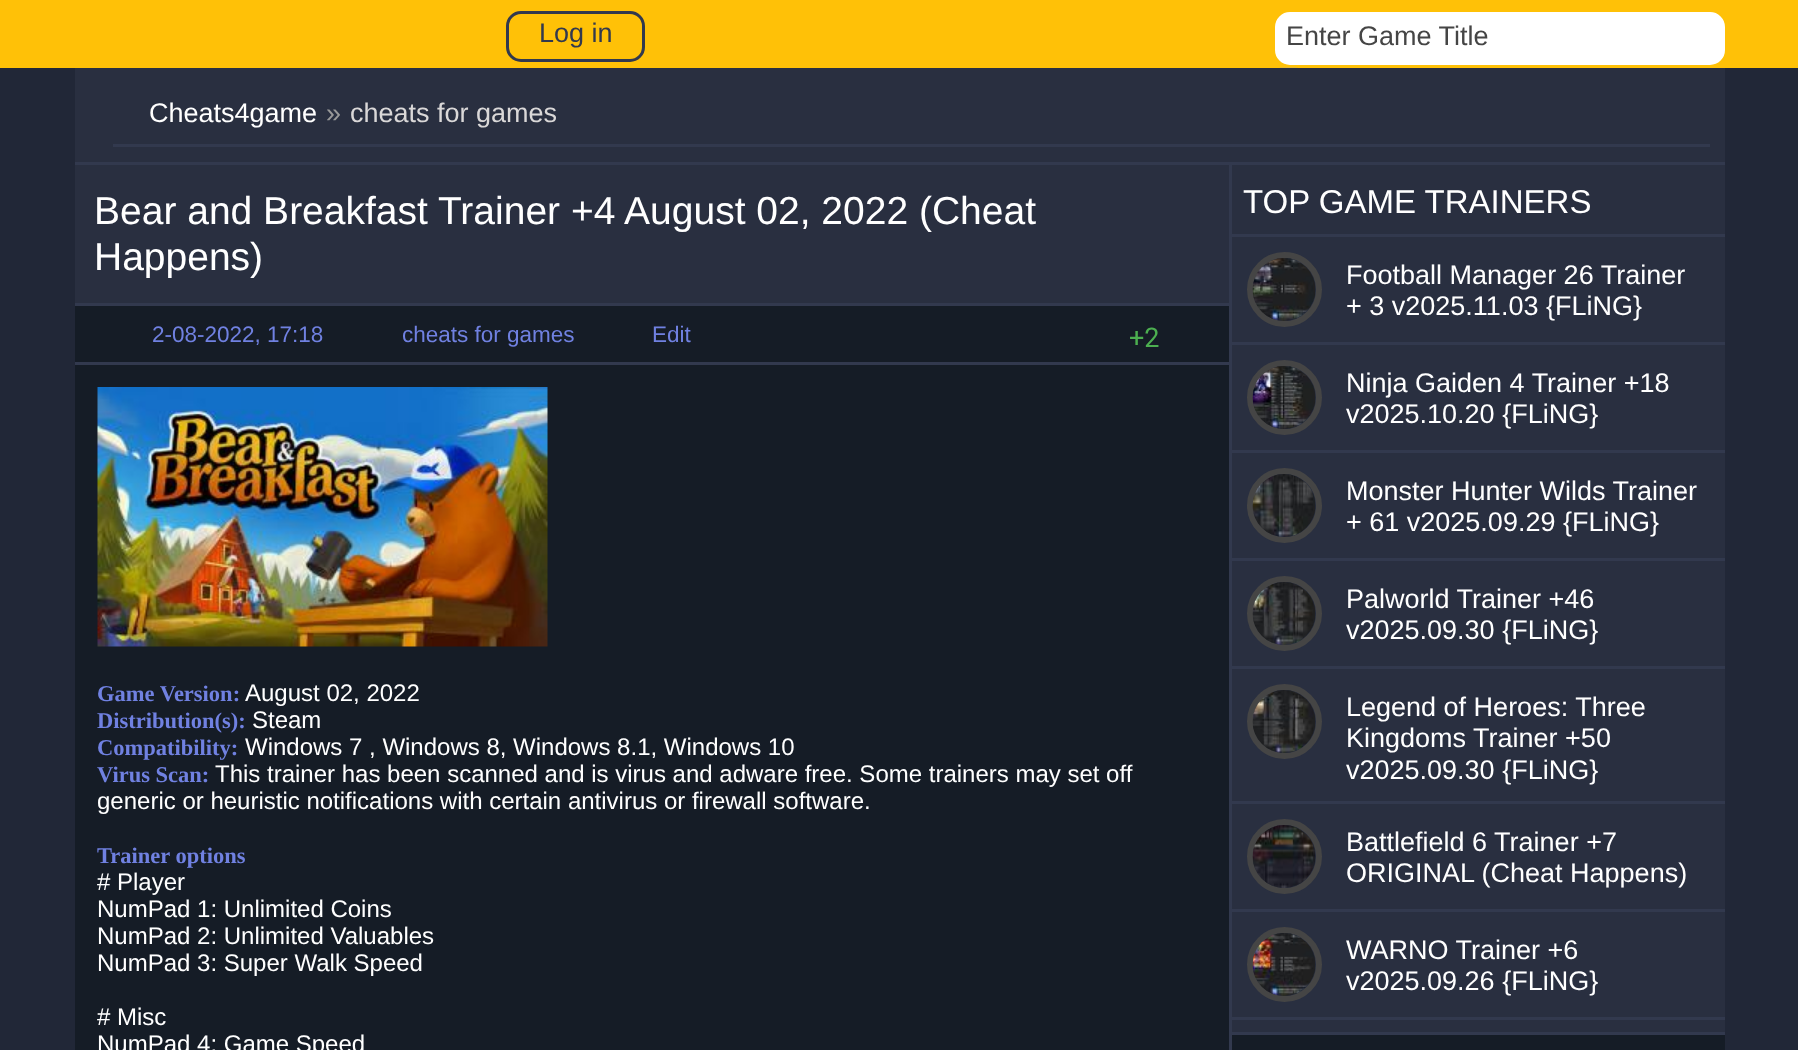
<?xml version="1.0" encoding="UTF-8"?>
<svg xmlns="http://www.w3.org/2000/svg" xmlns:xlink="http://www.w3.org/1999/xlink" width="1798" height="1050">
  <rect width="100%" height="100%" fill="#212737" />
  <rect width="1798" height="68" fill="#ffc107" />
  <rect x="507.5" y="12.5" width="136" height="48" rx="13.5" fill="none" stroke="#32394e" stroke-width="3" />
  <rect x="1276" y="13" width="448" height="51" rx="14" fill="#ffffff" stroke="#ffffff" stroke-width="2" />
  <image x="1279" y="67" width="19" height="1" xlink:href="image1.png" />
  <rect x="75" y="306" width="1650" height="744" fill="#151c26" />
  <rect x="75" y="68" width="1650" height="94" fill="#292f40" />
  <rect x="75" y="162" width="1650" height="3" fill="#32394e" />
  <rect x="113" y="144" width="1597" height="3" fill="#32394e" />
  <rect x="1229" y="165" width="3" height="885" fill="#32394e" />
  <rect x="75" y="165" width="1154" height="138" fill="#292f40" />
  <rect x="75" y="303" width="1154" height="3" fill="#32394e" />
  <rect x="75" y="362" width="1154" height="3" fill="#32394e" />
  <image x="97" y="387" width="451" height="260" xlink:href="image2.png" />
  <rect x="1232" y="165" width="493" height="69" fill="#292f40" />
  <rect x="1232" y="234" width="493" height="3" fill="#32394e" />
  <rect x="1232" y="237" width="493" height="795" fill="#292f40" />
  <rect x="1232" y="1032" width="493" height="3" fill="#32394e" />
  <rect x="1232" y="342" width="493" height="3" fill="#32394e" />
  <circle cx="1284.5" cy="289.5" r="34.5" fill="none" stroke="#454545" stroke-width="6" />
  <image x="1252" y="258" width="64" height="63" xlink:href="image3.png" />
  <rect x="1232" y="450" width="493" height="3" fill="#32394e" />
  <circle cx="1284.5" cy="397.5" r="34.5" fill="none" stroke="#454545" stroke-width="6" />
  <image x="1252" y="366" width="64" height="63" xlink:href="image4.png" />
  <rect x="1232" y="558" width="493" height="3" fill="#32394e" />
  <circle cx="1284.5" cy="505.5" r="34.5" fill="none" stroke="#454545" stroke-width="6" />
  <image x="1252" y="474" width="64" height="63" xlink:href="image5.png" />
  <rect x="1232" y="666" width="493" height="3" fill="#32394e" />
  <circle cx="1284.5" cy="613.5" r="34.5" fill="none" stroke="#454545" stroke-width="6" />
  <image x="1252" y="582" width="64" height="63" xlink:href="image6.png" />
  <rect x="1232" y="801" width="493" height="3" fill="#32394e" />
  <circle cx="1284.5" cy="721.5" r="34.5" fill="none" stroke="#454545" stroke-width="6" />
  <image x="1252" y="690" width="64" height="63" xlink:href="image7.png" />
  <rect x="1232" y="909" width="493" height="3" fill="#32394e" />
  <circle cx="1284.5" cy="856.5" r="34.5" fill="none" stroke="#454545" stroke-width="6" />
  <image x="1252" y="825" width="64" height="63" xlink:href="image8.png" />
  <rect x="1232" y="1017" width="493" height="3" fill="#32394e" />
  <circle cx="1284.5" cy="964.5" r="34.5" fill="none" stroke="#454545" stroke-width="6" />
  <image x="1252" y="933" width="64" height="63" xlink:href="image9.png" />
  <text x="539" y="42" style="font-family: Liberation Sans; font-size: 27px; fill: #32394e">Log in</text>
  <text x="1286" y="45" style="font-family: Liberation Sans; font-size: 27px; fill: #454545">Enter Game Title</text>
  <text x="149" y="122" style="font-family: Liberation Sans; font-size: 27px; fill: #ffffff">Cheats4game</text>
  <text x="326" y="122" style="font-family: Liberation Sans; font-size: 27px; fill: #999999">»</text>
  <text x="350" y="122" style="font-family: Liberation Sans; font-size: 27px; fill: #dad8d8">cheats for games</text>
  <text x="94" y="224" style="font-family: Liberation Sans; font-size: 39px; fill: #ffffff">Bear and Breakfast Trainer +4 August 02, 2022 (Cheat</text>
  <text x="94" y="270" style="font-family: Liberation Sans; font-size: 39px; fill: #ffffff">Happens)</text>
  <text x="152" y="342" style="font-family: Liberation Sans; font-size: 22.5px; fill: #7081e1">2-08-2022, 17:18</text>
  <text x="402" y="342" style="font-family: Liberation Sans; font-size: 22.5px; fill: #7081e1">cheats for games</text>
  <text x="652" y="342" style="font-family: Liberation Sans; font-size: 22.5px; fill: #7081e1">Edit</text>
  <text x="1129" y="347" style="font-family: Roboto; font-size: 27px; fill: #4caf50">+2</text>
  <text x="97" y="701" style="font-family: Liberation Serif; font-size: 22.5px; font-weight: bold; fill: #7081e1">Game Version:</text>
  <text x="245" y="701" style="font-family: Liberation Sans; font-size: 24px; fill: #ffffff">August 02, 2022</text>
  <text x="97" y="728" style="font-family: Liberation Serif; font-size: 22.5px; font-weight: bold; fill: #7081e1">Distribution(s):</text>
  <text x="252" y="728" style="font-family: Liberation Sans; font-size: 24px; fill: #ffffff">Steam</text>
  <text x="97" y="755" style="font-family: Liberation Serif; font-size: 22.5px; font-weight: bold; fill: #7081e1">Compatibility:</text>
  <text x="245" y="755" style="font-family: Liberation Sans; font-size: 24px; fill: #ffffff">Windows 7 , Windows 8, Windows 8.1, Windows 10</text>
  <text x="97" y="782" style="font-family: Liberation Serif; font-size: 22.5px; font-weight: bold; fill: #7081e1">Virus Scan:</text>
  <text x="215" y="782" style="font-family: Liberation Sans; font-size: 24px; fill: #ffffff">This trainer has been scanned and is virus and adware free. Some trainers may set off</text>
  <text x="97" y="809" style="font-family: Liberation Sans; font-size: 24px; fill: #ffffff">generic or heuristic notifications with certain antivirus or firewall software.</text>
  <text x="97" y="863" style="font-family: Liberation Serif; font-size: 22.5px; font-weight: bold; fill: #7081e1">Trainer options</text>
  <text x="97" y="890" style="font-family: Liberation Sans; font-size: 24px; fill: #ffffff"># Player</text>
  <text x="97" y="917" style="font-family: Liberation Sans; font-size: 24px; fill: #ffffff">NumPad 1: Unlimited Coins</text>
  <text x="97" y="944" style="font-family: Liberation Sans; font-size: 24px; fill: #ffffff">NumPad 2: Unlimited Valuables</text>
  <text x="97" y="971" style="font-family: Liberation Sans; font-size: 24px; fill: #ffffff">NumPad 3: Super Walk Speed</text>
  <text x="97" y="1025" style="font-family: Liberation Sans; font-size: 24px; fill: #ffffff"># Misc</text>
  <text x="97" y="1052" style="font-family: Liberation Sans; font-size: 24px; fill: #ffffff">NumPad 4: Game Speed</text>
  <text x="1243" y="213" style="font-family: Liberation Sans; font-size: 33px; fill: #ffffff">TOP GAME TRAINERS</text>
  <text x="1346" y="284" style="font-family: Liberation Sans; font-size: 27px; fill: #ffffff">Football Manager 26 Trainer</text>
  <text x="1346" y="315" style="font-family: Liberation Sans; font-size: 27px; fill: #ffffff">+ 3 v2025.11.03 {FLiNG}</text>
  <text x="1346" y="392" style="font-family: Liberation Sans; font-size: 27px; fill: #ffffff">Ninja Gaiden 4 Trainer +18</text>
  <text x="1346" y="423" style="font-family: Liberation Sans; font-size: 27px; fill: #ffffff">v2025.10.20 {FLiNG}</text>
  <text x="1346" y="500" style="font-family: Liberation Sans; font-size: 27px; fill: #ffffff">Monster Hunter Wilds Trainer</text>
  <text x="1346" y="531" style="font-family: Liberation Sans; font-size: 27px; fill: #ffffff">+ 61 v2025.09.29 {FLiNG}</text>
  <text x="1346" y="608" style="font-family: Liberation Sans; font-size: 27px; fill: #ffffff">Palworld Trainer +46</text>
  <text x="1346" y="639" style="font-family: Liberation Sans; font-size: 27px; fill: #ffffff">v2025.09.30 {FLiNG}</text>
  <text x="1346" y="716" style="font-family: Liberation Sans; font-size: 27px; fill: #ffffff">Legend of Heroes: Three</text>
  <text x="1346" y="747" style="font-family: Liberation Sans; font-size: 27px; fill: #ffffff">Kingdoms Trainer +50</text>
  <text x="1346" y="779" style="font-family: Liberation Sans; font-size: 27px; fill: #ffffff">v2025.09.30 {FLiNG}</text>
  <text x="1346" y="851" style="font-family: Liberation Sans; font-size: 27px; fill: #ffffff">Battlefield 6 Trainer +7</text>
  <text x="1346" y="882" style="font-family: Liberation Sans; font-size: 27px; fill: #ffffff">ORIGINAL (Cheat Happens)</text>
  <text x="1346" y="959" style="font-family: Liberation Sans; font-size: 27px; fill: #ffffff">WARNO Trainer +6</text>
  <text x="1346" y="990" style="font-family: Liberation Sans; font-size: 27px; fill: #ffffff">v2025.09.26 {FLiNG}</text>
</svg>
